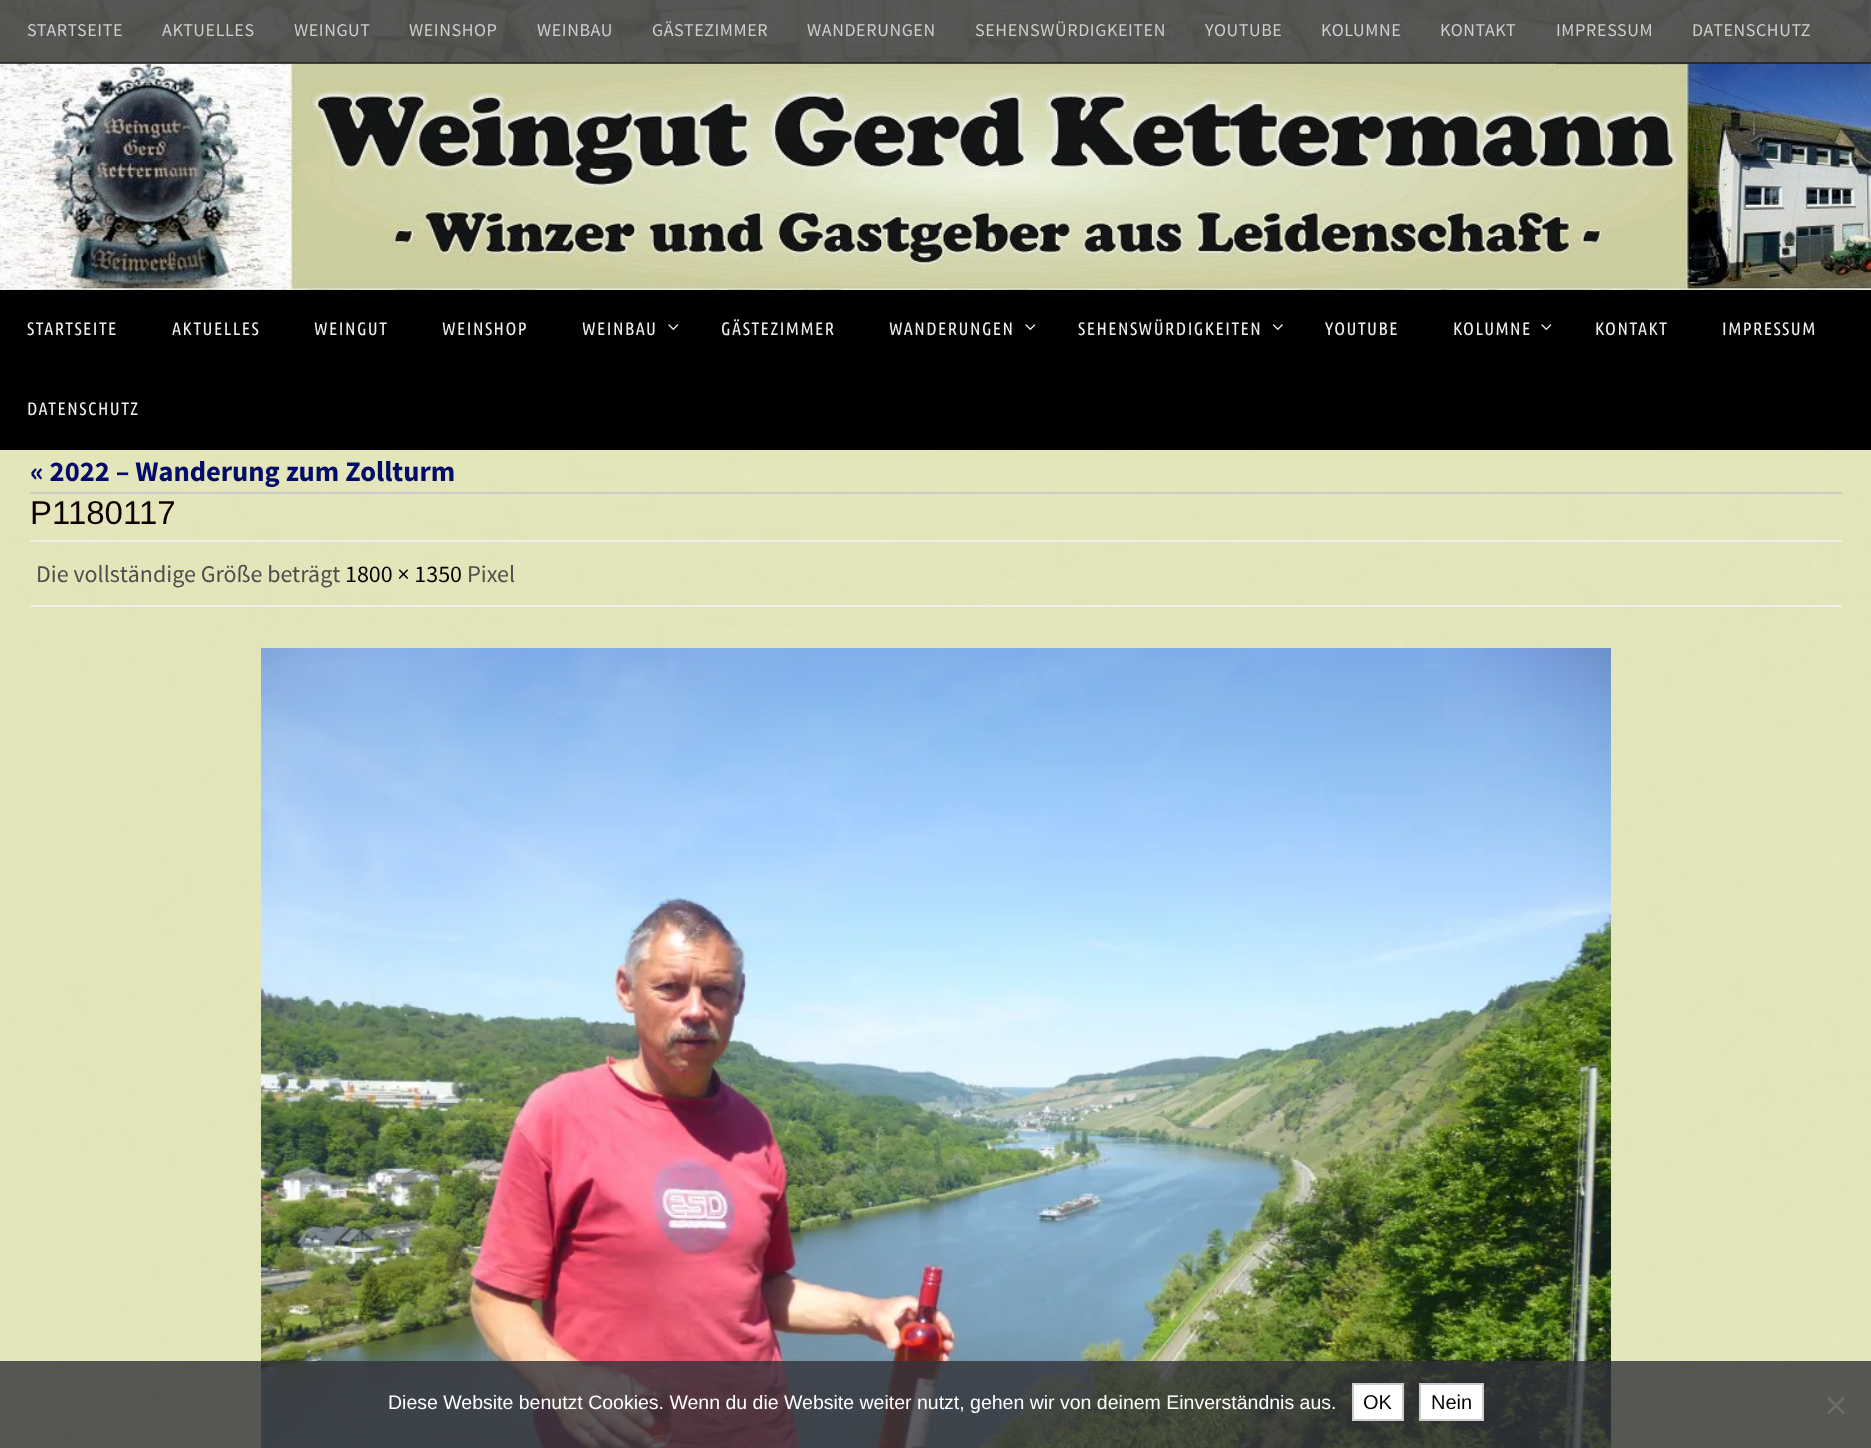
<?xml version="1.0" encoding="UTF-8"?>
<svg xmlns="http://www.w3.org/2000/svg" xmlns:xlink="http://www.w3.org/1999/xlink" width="1871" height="1448">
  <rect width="100%" height="100%" fill="#ffffff" />
  <image x="0" y="0" width="1871" height="1448" xlink:href="image1.png" />
  <rect width="1871" height="63" fill="#333333" fill-opacity="0.8" />
  <image x="0" y="63" width="1871" height="227" xlink:href="image3.png" />
  <rect y="62" width="1871" height="2" fill="#1f1f1f" fill-opacity="0.8" />
  <image x="23" y="63" width="16" height="16" xlink:href="image2.png" />
  <rect y="290" width="1871" height="160" fill="#000000" />
  <image x="668" y="324" width="11" height="7" xlink:href="image4.png" />
  <image x="1025" y="324" width="11" height="7" xlink:href="image4.png" />
  <image x="1272" y="324" width="11" height="7" xlink:href="image5.png" />
  <image x="1541" y="324" width="11" height="7" xlink:href="image4.png" />
  <rect y="450" width="1871" height="998" fill="#e3e5b9" fill-opacity="0.97" />
  <rect x="30" y="492" width="1812" height="2" fill="#cccccc" />
  <rect x="30" y="540" width="1812" height="2" fill="#eeeeee" />
  <rect x="30" y="605" width="1812" height="2" fill="#eeeeee" />
  <image x="261" y="648" width="1350" height="800" xlink:href="image6.png" />
  <rect y="1361" width="1871" height="87" fill="#32323a" fill-opacity="0.8" />
  <rect x="1353" y="1384" width="50" height="36" fill="#ffffff" stroke="#cccccc" stroke-width="2" />
  <rect x="1420" y="1384" width="63" height="36" fill="#ffffff" stroke="#cccccc" stroke-width="2" />
  <path d="M 1843 1396.5 l 2 2 l -16 16 l -2 -2 z" fill="#6b6b6a" />
  <path d="M 1827 1398.5 l 2 -2 l 16 16 l -2 2 z" fill="#6b6b6a" />
  <text x="27" y="36" style="font-family: Source Sans Pro; font-size: 18px; letter-spacing: 0.6px; fill: #cfcfcf">STARTSEITE</text>
  <text x="162" y="36" style="font-family: Source Sans Pro; font-size: 18px; letter-spacing: 0.6px; fill: #cfcfcf">AKTUELLES</text>
  <text x="294" y="36" style="font-family: Source Sans Pro; font-size: 18px; letter-spacing: 0.6px; fill: #cfcfcf">WEINGUT</text>
  <text x="409" y="36" style="font-family: Source Sans Pro; font-size: 18px; letter-spacing: 0.6px; fill: #cfcfcf">WEINSHOP</text>
  <text x="537" y="36" style="font-family: Source Sans Pro; font-size: 18px; letter-spacing: 0.6px; fill: #cfcfcf">WEINBAU</text>
  <text x="652" y="36" style="font-family: Source Sans Pro; font-size: 18px; letter-spacing: 0.6px; fill: #cfcfcf">GÄSTEZIMMER</text>
  <text x="807" y="36" style="font-family: Source Sans Pro; font-size: 18px; letter-spacing: 0.6px; fill: #cfcfcf">WANDERUNGEN</text>
  <text x="975" y="36" style="font-family: Source Sans Pro; font-size: 18px; letter-spacing: 0.6px; fill: #cfcfcf">SEHENSWÜRDIGKEITEN</text>
  <text x="1205" y="36" style="font-family: Source Sans Pro; font-size: 18px; letter-spacing: 0.6px; fill: #cfcfcf">YOUTUBE</text>
  <text x="1321" y="36" style="font-family: Source Sans Pro; font-size: 18px; letter-spacing: 0.6px; fill: #cfcfcf">KOLUMNE</text>
  <text x="1440" y="36" style="font-family: Source Sans Pro; font-size: 18px; letter-spacing: 0.6px; fill: #cfcfcf">KONTAKT</text>
  <text x="1556" y="36" style="font-family: Source Sans Pro; font-size: 18px; letter-spacing: 0.6px; fill: #cfcfcf">IMPRESSUM</text>
  <text x="1692" y="36" style="font-family: Source Sans Pro; font-size: 18px; letter-spacing: 0.6px; fill: #cfcfcf">DATENSCHUTZ</text>
  <text x="27" y="335" style="font-family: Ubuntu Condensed; font-size: 18px; letter-spacing: 1.5px; fill: #eeeeee">STARTSEITE</text>
  <text x="172" y="335" style="font-family: Ubuntu Condensed; font-size: 18px; letter-spacing: 1.5px; fill: #eeeeee">AKTUELLES</text>
  <text x="314" y="335" style="font-family: Ubuntu Condensed; font-size: 18px; letter-spacing: 1.5px; fill: #eeeeee">WEINGUT</text>
  <text x="442" y="335" style="font-family: Ubuntu Condensed; font-size: 18px; letter-spacing: 1.5px; fill: #eeeeee">WEINSHOP</text>
  <text x="582" y="335" style="font-family: Ubuntu Condensed; font-size: 18px; letter-spacing: 1.5px; fill: #eeeeee">WEINBAU</text>
  <text x="721" y="335" style="font-family: Ubuntu Condensed; font-size: 18px; letter-spacing: 1.5px; fill: #eeeeee">GÄSTEZIMMER</text>
  <text x="889" y="335" style="font-family: Ubuntu Condensed; font-size: 18px; letter-spacing: 1.5px; fill: #eeeeee">WANDERUNGEN</text>
  <text x="1078" y="335" style="font-family: Ubuntu Condensed; font-size: 18px; letter-spacing: 1.5px; fill: #eeeeee">SEHENSWÜRDIGKEITEN</text>
  <text x="1325" y="335" style="font-family: Ubuntu Condensed; font-size: 18px; letter-spacing: 1.5px; fill: #eeeeee">YOUTUBE</text>
  <text x="1453" y="335" style="font-family: Ubuntu Condensed; font-size: 18px; letter-spacing: 1.5px; fill: #eeeeee">KOLUMNE</text>
  <text x="1595" y="335" style="font-family: Ubuntu Condensed; font-size: 18px; letter-spacing: 1.5px; fill: #eeeeee">KONTAKT</text>
  <text x="1722" y="335" style="font-family: Ubuntu Condensed; font-size: 18px; letter-spacing: 1.5px; fill: #eeeeee">IMPRESSUM</text>
  <text x="27" y="415" style="font-family: Ubuntu Condensed; font-size: 18px; letter-spacing: 1.5px; fill: #eeeeee">DATENSCHUTZ</text>
  <text x="30" y="481" style="font-family: Source Sans Pro; font-size: 28.5px; font-weight: bold; fill: #030c68">« 2022 – Wanderung zum Zollturm</text>
  <text x="30" y="524" style="font-family: Liberation Sans; font-size: 33px; fill: #0f0000">P1180117</text>
  <text x="36" y="582" style="font-family: Source Sans Pro; font-size: 24px; fill: #4d4f4d">Die vollständige Größe beträgt</text>
  <text x="345" y="582" style="font-family: Source Sans Pro; font-size: 24px; fill: #000000">1800 × 1350</text>
  <text x="467" y="582" style="font-family: Source Sans Pro; font-size: 24px; fill: #4d4f4d">Pixel</text>
  <text x="388" y="1409" style="font-family: Liberation Sans; font-size: 19.5px; fill: #ffffff">Diese Website benutzt Cookies. Wenn du die Website weiter nutzt, gehen wir von deinem Einverständnis aus.</text>
  <text x="1363" y="1409" style="font-family: Liberation Sans; font-size: 20px; fill: #000000">OK</text>
  <text x="1431" y="1409" style="font-family: Liberation Sans; font-size: 20px; fill: #000000">Nein</text>
</svg>
